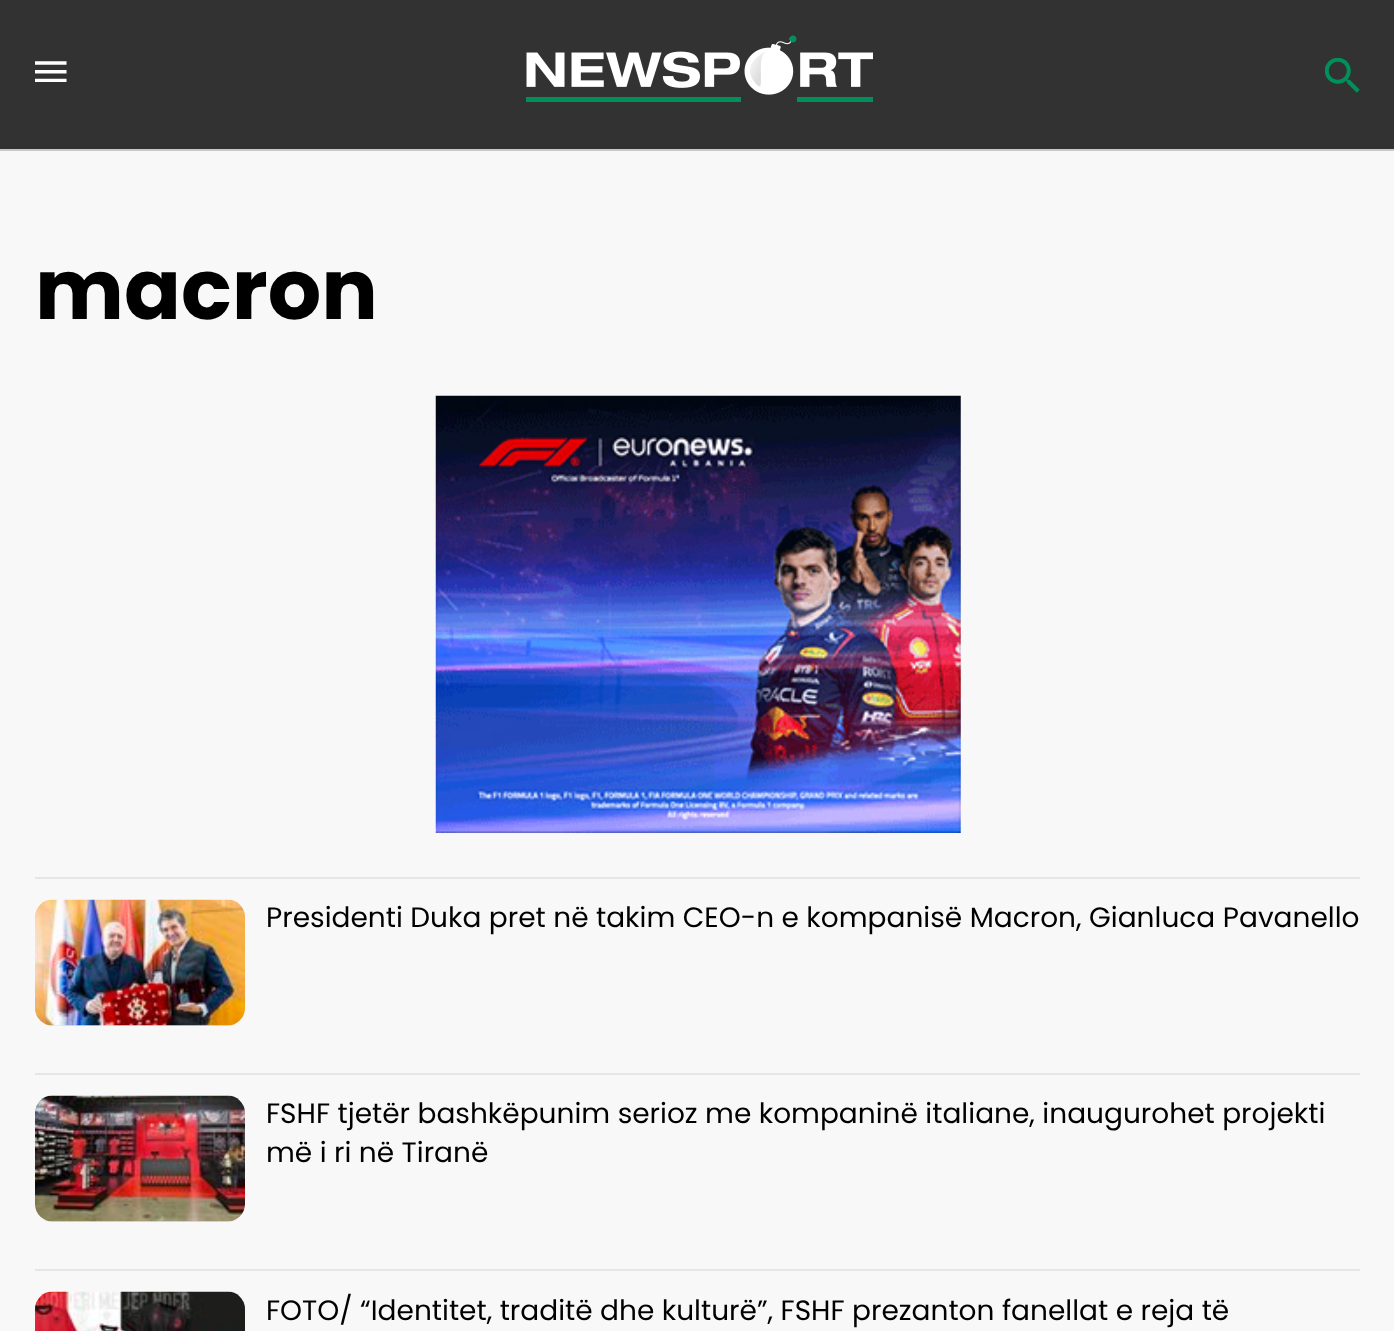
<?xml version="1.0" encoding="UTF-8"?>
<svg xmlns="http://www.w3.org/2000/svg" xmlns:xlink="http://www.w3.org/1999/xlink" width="1394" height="1331">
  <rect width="100%" height="100%" fill="#f9f8f8" />
  <rect y="149" width="1394" height="2" fill="#c9c9c9" />
  <rect width="1394" height="149" fill="#323232" />
  <image x="35" y="61" width="32" height="21" xlink:href="image1.png" />
  <image x="526" y="35" width="347" height="67" xlink:href="image2.png" />
  <image x="1325" y="58" width="35" height="35" xlink:href="image3.png" />
  <image x="435" y="395" width="526" height="438" xlink:href="image4.png" />
  <rect x="35" y="877" width="1325" height="2" fill="#e6e6e6" />
  <rect x="35" y="1073" width="1325" height="2" fill="#e6e6e6" />
  <rect x="35" y="900" width="210" height="126" rx="18" fill="#e6e6e6" />
  <image x="35" y="899" width="210" height="127" xlink:href="image5.png" />
  <rect x="35" y="1269" width="1325" height="2" fill="#e6e6e6" />
  <rect x="35" y="1096" width="210" height="126" rx="18" fill="#e6e6e6" />
  <image x="35" y="1095" width="210" height="127" xlink:href="image6.png" />
  <image x="35" y="1291" width="210" height="40" xlink:href="image7.png" />
  <text x="35" y="319" style="font-family: Poppins; font-size: 84px; font-weight: bold; fill: #000000">macron</text>
  <text x="266" y="927" style="font-family: Poppins; font-size: 28px; fill: #000000">Presidenti Duka pret në takim CEO-n e kompanisë Macron, Gianluca Pavanello</text>
  <text x="266" y="1123" style="font-family: Poppins; font-size: 28px; fill: #000000">FSHF tjetër bashkëpunim serioz me kompaninë italiane, inaugurohet projekti</text>
  <text x="266" y="1162" style="font-family: Poppins; font-size: 28px; fill: #000000">më i ri në Tiranë</text>
  <text x="266" y="1320" style="font-family: Poppins; font-size: 28px; fill: #000000">FOTO/ “Identitet, traditë dhe kulturë”, FSHF prezanton fanellat e reja të</text>
</svg>
